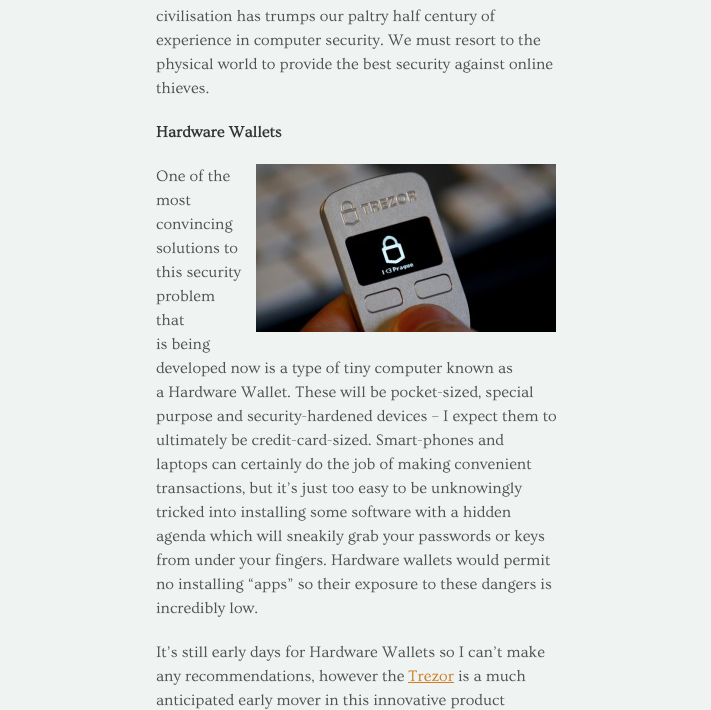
<?xml version="1.0" encoding="UTF-8"?>
<svg xmlns="http://www.w3.org/2000/svg" xmlns:xlink="http://www.w3.org/1999/xlink" width="711" height="710">
  <rect width="100%" height="100%" fill="#eff4f2" />
  <image x="256" y="164" width="300" height="168" xlink:href="image1.png" />
  <rect x="408" y="682" width="46" height="1" fill="#cc7e26" />
  <text x="156" y="21" style="font-family: Ovo; font-size: 16px; fill: #515151">civilisation has trumps our paltry half century of</text>
  <text x="156" y="45" style="font-family: Ovo; font-size: 16px; fill: #515151">experience in computer security. We must resort to the</text>
  <text x="156" y="69" style="font-family: Ovo; font-size: 16px; fill: #515151">physical world to provide the best security against online</text>
  <text x="156" y="93" style="font-family: Ovo; font-size: 16px; fill: #515151">thieves.</text>
  <text x="156" y="137" style="font-family: Ovo; font-size: 16px; font-weight: bold; fill: #333333">Hardware Wallets</text>
  <text x="156" y="181" style="font-family: Ovo; font-size: 16px; fill: #515151">One of the</text>
  <text x="156" y="205" style="font-family: Ovo; font-size: 16px; fill: #515151">most</text>
  <text x="156" y="229" style="font-family: Ovo; font-size: 16px; fill: #515151">convincing</text>
  <text x="156" y="253" style="font-family: Ovo; font-size: 16px; fill: #515151">solutions to</text>
  <text x="156" y="277" style="font-family: Ovo; font-size: 16px; fill: #515151">this security</text>
  <text x="156" y="301" style="font-family: Ovo; font-size: 16px; fill: #515151">problem</text>
  <text x="156" y="325" style="font-family: Ovo; font-size: 16px; fill: #515151">that</text>
  <text x="156" y="349" style="font-family: Ovo; font-size: 16px; fill: #515151">is being</text>
  <text x="156" y="373" style="font-family: Ovo; font-size: 16px; fill: #515151">developed now is a type of tiny computer known as</text>
  <text x="156" y="397" style="font-family: Ovo; font-size: 16px; fill: #515151">a Hardware Wallet. These will be pocket-sized, special</text>
  <text x="156" y="421" style="font-family: Ovo; font-size: 16px; fill: #515151">purpose and security-hardened devices – I expect them to</text>
  <text x="156" y="445" style="font-family: Ovo; font-size: 16px; fill: #515151">ultimately be credit-card-sized. Smart-phones and</text>
  <text x="156" y="469" style="font-family: Ovo; font-size: 16px; fill: #515151">laptops can certainly do the job of making convenient</text>
  <text x="156" y="493" style="font-family: Ovo; font-size: 16px; fill: #515151">transactions, but it’s just too easy to be unknowingly</text>
  <text x="156" y="517" style="font-family: Ovo; font-size: 16px; fill: #515151">tricked into installing some software with a hidden</text>
  <text x="156" y="541" style="font-family: Ovo; font-size: 16px; fill: #515151">agenda which will sneakily grab your passwords or keys</text>
  <text x="156" y="565" style="font-family: Ovo; font-size: 16px; fill: #515151">from under your fingers. Hardware wallets would permit</text>
  <text x="156" y="589" style="font-family: Ovo; font-size: 16px; fill: #515151">no installing “apps” so their exposure to these dangers is</text>
  <text x="156" y="613" style="font-family: Ovo; font-size: 16px; fill: #515151">incredibly low.</text>
  <text x="156" y="657" style="font-family: Ovo; font-size: 16px; fill: #515151">It’s still early days for Hardware Wallets so I can’t make</text>
  <text x="156" y="681" style="font-family: Ovo; font-size: 16px; fill: #515151">any recommendations, however the</text>
  <text x="408" y="681" style="font-family: Ovo; font-size: 16px; fill: #cc7e26">Trezor</text>
  <text x="458" y="681" style="font-family: Ovo; font-size: 16px; fill: #515151">is a much</text>
  <text x="156" y="705" style="font-family: Ovo; font-size: 16px; fill: #515151">anticipated early mover in this innovative product</text>
</svg>
